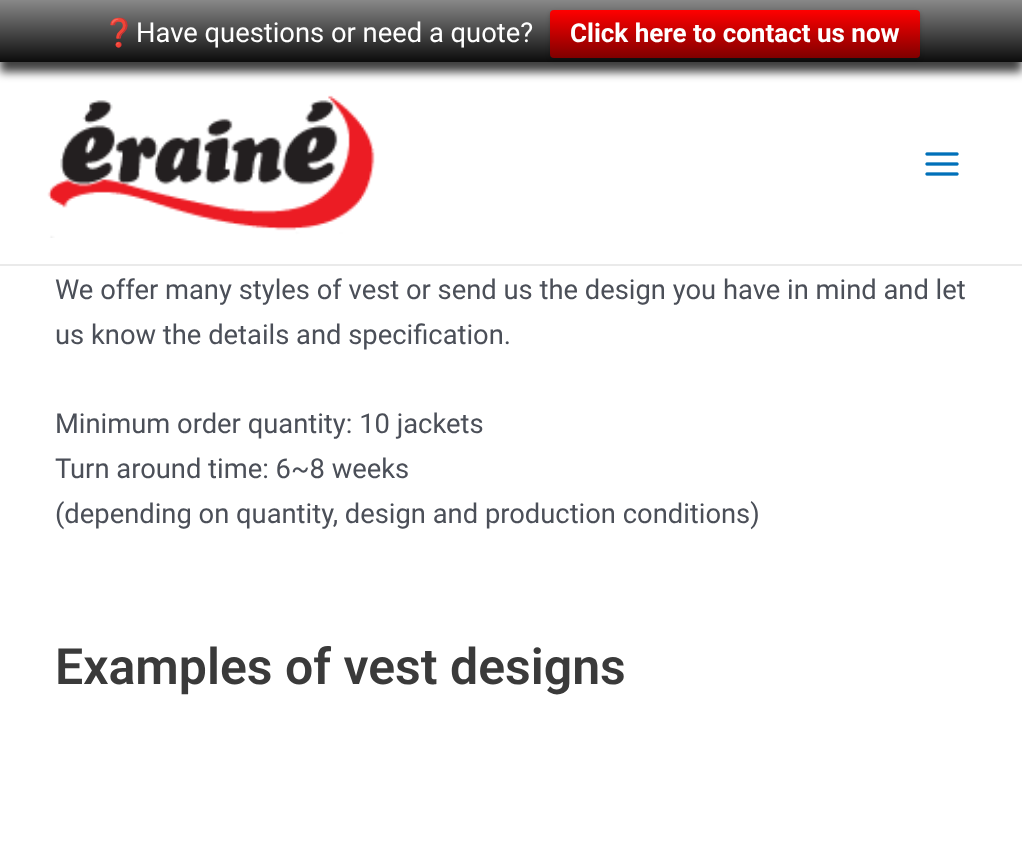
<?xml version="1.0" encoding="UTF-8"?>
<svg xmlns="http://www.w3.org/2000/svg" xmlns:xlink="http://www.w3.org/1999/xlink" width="1022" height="867">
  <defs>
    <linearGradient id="g1" gradientUnits="userSpaceOnUse" x1="511" y1="0" x2="511" y2="68"><stop offset="0" stop-color="#888888" /><stop offset="1" stop-color="#000000" /></linearGradient>
    <linearGradient id="g2" gradientUnits="userSpaceOnUse" x1="735" y1="10" x2="735" y2="58"><stop offset="0" stop-color="#ff0000" /><stop offset="1" stop-color="#800000" /></linearGradient>
  </defs>
  <rect width="100%" height="100%" fill="#ffffff" />
  <rect y="10" width="1022" height="62" fill="#000000" fill-opacity="0.75" filter="blur(5px)" />
  <rect width="1022" height="62" fill="url(#g1)" />
  <rect x="550" y="12" width="370" height="48" rx="4" fill="#000000" fill-opacity="0.2" filter="blur(2px)" />
  <rect x="550" y="10" width="370" height="48" rx="4" fill="url(#g2)" />
  <rect y="264" width="1022" height="2" fill="#eaeaea" />
  <image x="47" y="95" width="328" height="143" xlink:href="image1.png" />
  <image x="925" y="152" width="34" height="24" xlink:href="image2.png" />
  <text x="102" y="42" style="font-family: Noto Color Emoji; font-size: 27.35px; fill: #ffffff">❓</text>
  <text x="136" y="42" style="font-family: Roboto; font-size: 27.35px; fill: #ffffff">Have questions or need a quote?</text>
  <text x="570" y="42" style="font-family: Roboto; font-size: 26px; font-weight: bold; fill: #ffffff">Click here to contact us now</text>
  <text x="55" y="299" style="font-family: Roboto; font-size: 27.35px; fill: #4b4f58">We offer many styles of vest or send us the design you have in mind and let</text>
  <text x="55" y="344" style="font-family: Roboto; font-size: 27.35px; fill: #4b4f58">us know the details and specification.</text>
  <text x="55" y="433" style="font-family: Roboto; font-size: 27.35px; fill: #4b4f58">Minimum order quantity: 10 jackets</text>
  <text x="55" y="478" style="font-family: Roboto; font-size: 27.35px; fill: #4b4f58">Turn around time: 6~8 weeks</text>
  <text x="55" y="523" style="font-family: Roboto; font-size: 27.35px; fill: #4b4f58">(depending on quantity, design and production conditions)</text>
  <text x="55" y="684" style="font-family: Roboto; font-size: 50px; font-weight: 600; fill: #3a3a3a">Examples of vest designs</text>
</svg>
